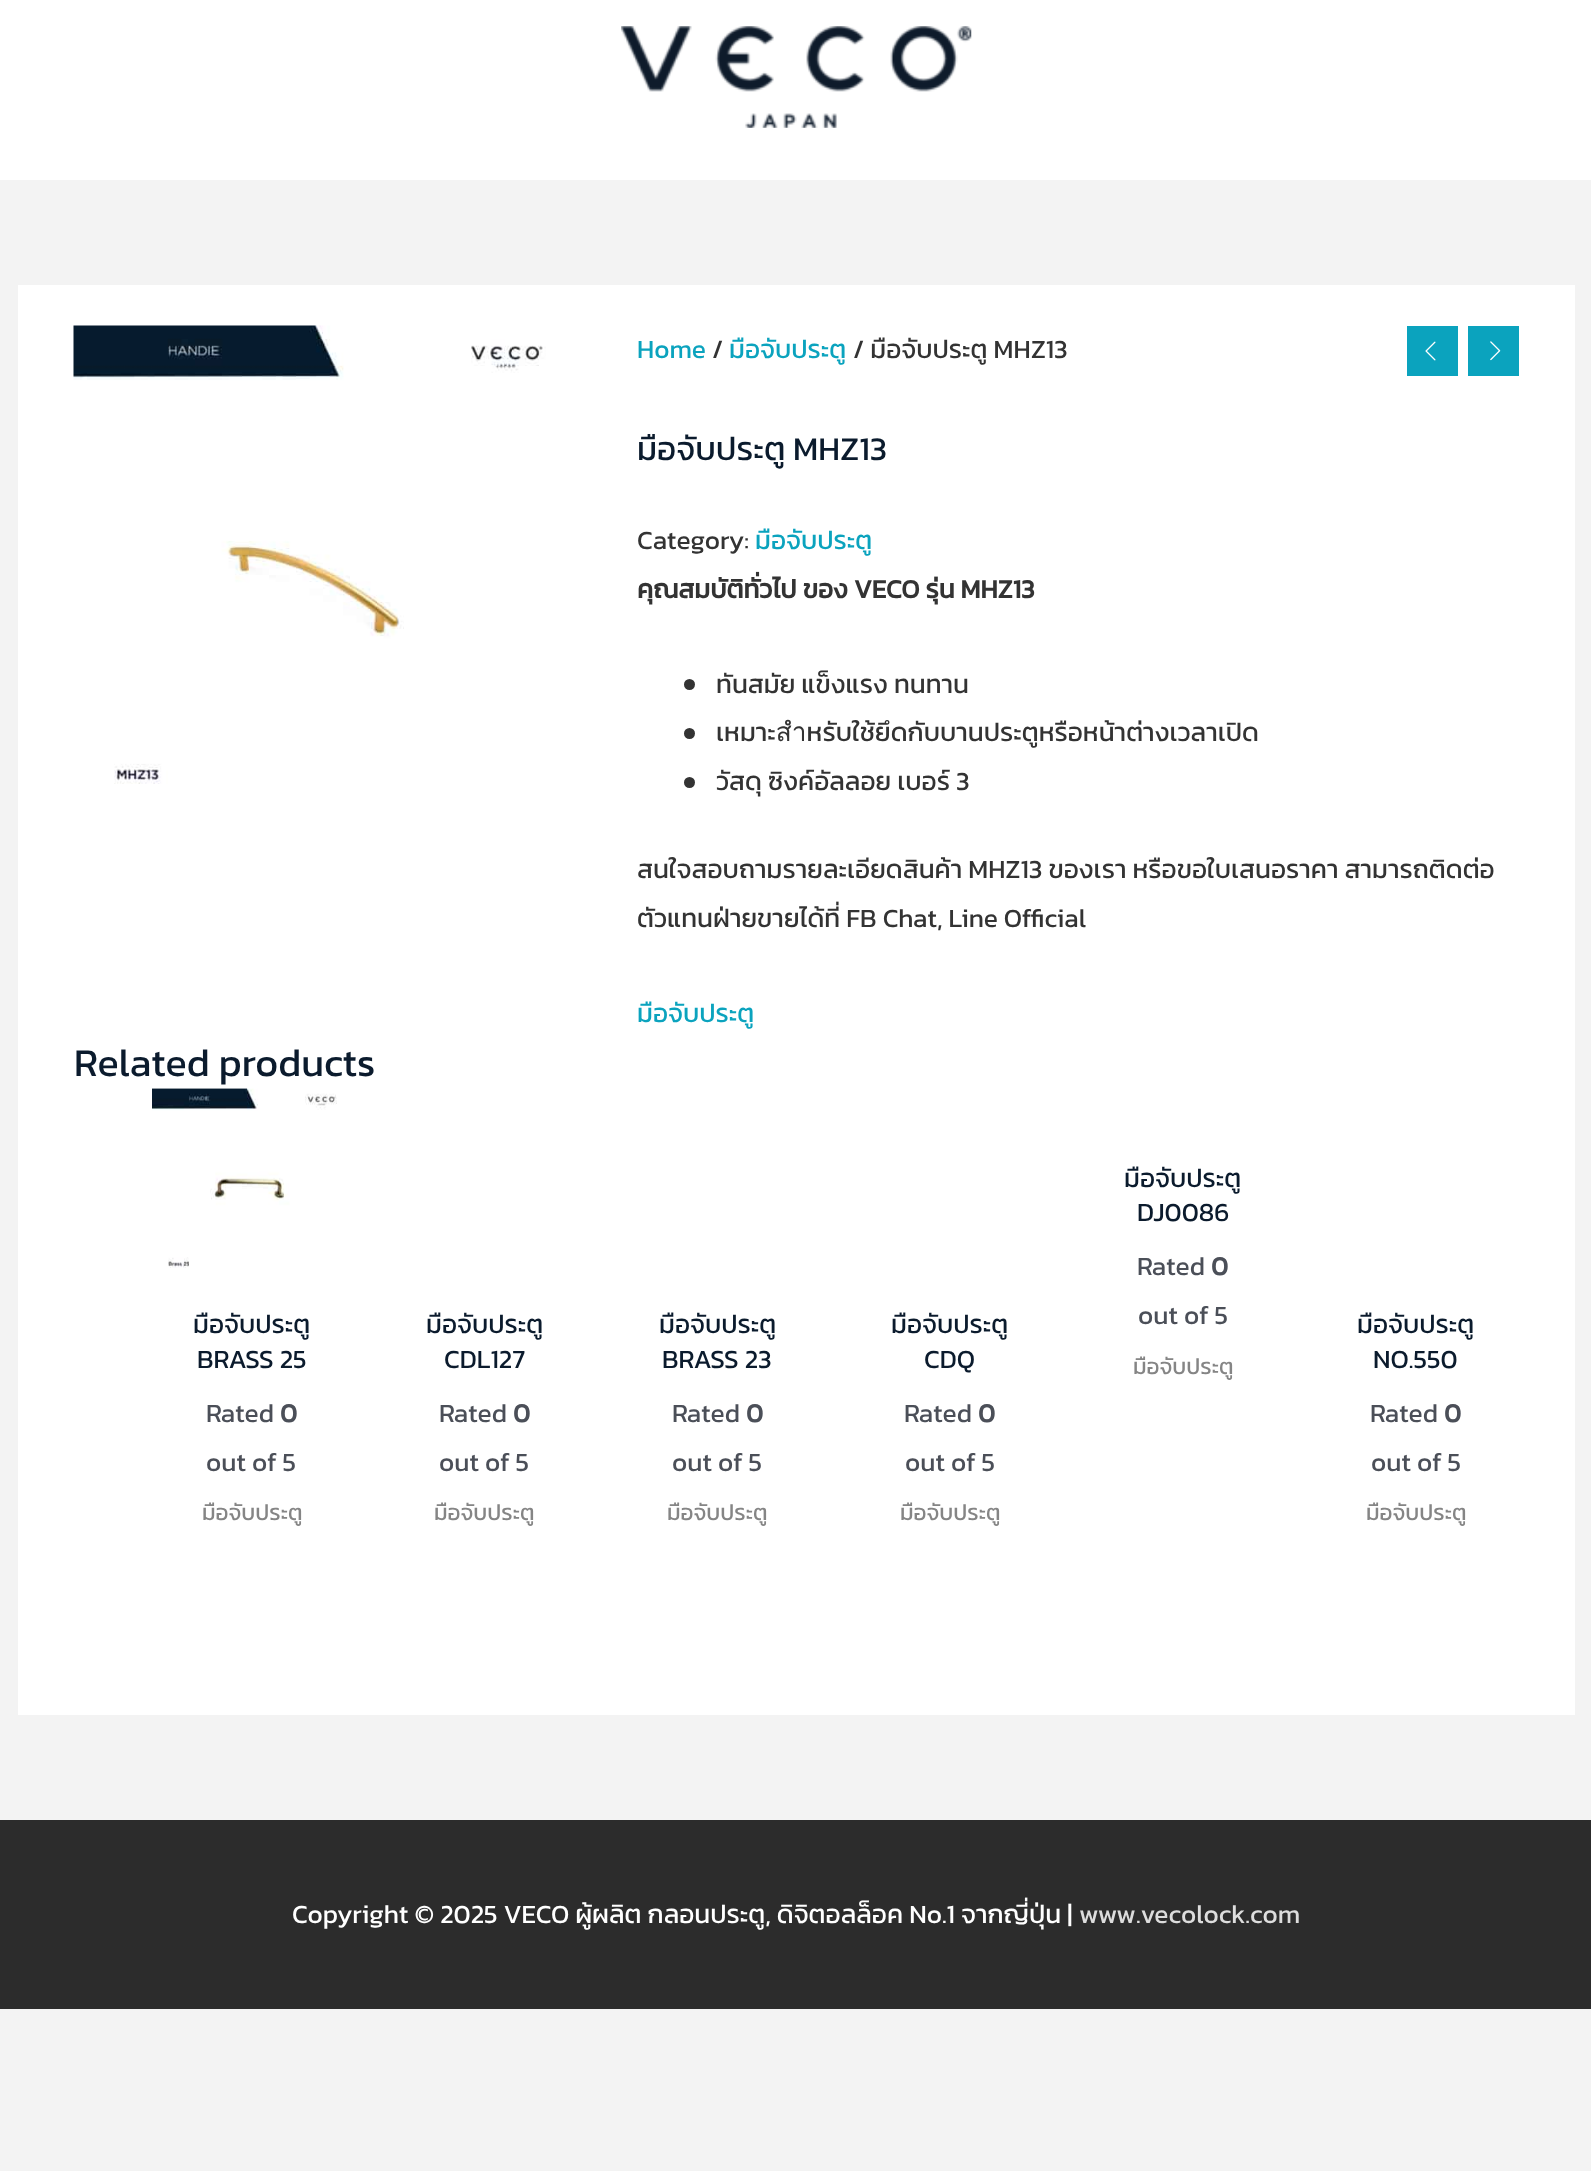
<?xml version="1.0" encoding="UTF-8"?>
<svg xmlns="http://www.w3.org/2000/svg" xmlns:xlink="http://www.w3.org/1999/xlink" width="1591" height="2171">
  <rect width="100%" height="100%" fill="#f3f3f3" />
  <rect width="1591" height="180" fill="#ffffff" />
  <image x="621" y="26" width="351" height="102" xlink:href="image1.png" />
  <rect x="18" y="285" width="1557" height="1430" fill="#ffffff" />
  <image x="73" y="325" width="473" height="459" xlink:href="image2.png" />
  <rect x="1407" y="326" width="51" height="50" fill="#0ba3be" />
  <image x="1425" y="341" width="11" height="20" xlink:href="image3.png" />
  <rect x="1468" y="326" width="51" height="50" fill="#0ba3be" />
  <image x="1490" y="341" width="11" height="20" xlink:href="image4.png" />
  <circle cx="689.5" cy="684.5" r="5.5" fill="#333333" />
  <circle cx="689.5" cy="733.5" r="5.5" fill="#333333" />
  <circle cx="689.5" cy="782.5" r="5.5" fill="#333333" />
  <image x="152" y="1088" width="185" height="180" xlink:href="image5.png" />
  <rect y="1820" width="1591" height="189" fill="#2c2c2c" />
  <text x="853" y="358" style="font-family: Kanit; font-size: 26.25px; fill: #333333">/ มือจับประตู MHZ13</text>
  <text x="637" y="358" style="font-family: Kanit; font-size: 26.25px; fill: #0ba3be">Home</text>
  <text x="712" y="358" style="font-family: Kanit; font-size: 26.25px; fill: #333333">/</text>
  <text x="729" y="358" style="font-family: Kanit; font-size: 26.25px; fill: #0ba3be">มือจับประตู</text>
  <text x="637" y="460" style="font-family: Kanit; font-size: 33.25px; fill: #0b1b2d">มือจับประตู MHZ13</text>
  <text x="637" y="549" style="font-family: Kanit; font-size: 26.25px; fill: #333333">Category:</text>
  <text x="755" y="549" style="font-family: Kanit; font-size: 26.25px; fill: #0ba3be">มือจับประตู</text>
  <text x="637" y="598" style="font-family: Kanit; font-size: 26.25px; font-weight: bold; fill: #333333">คุณสมบัติทั่วไป ของ VECO รุ่น MHZ13</text>
  <text x="716" y="693" style="font-family: Kanit; font-size: 26.25px; fill: #333333">ทันสมัย แข็งแรง ทนทาน</text>
  <text x="716" y="741" style="font-family: Kanit; font-size: 26.25px; fill: #333333">เหมาะสำหรับใช้ยึดกับบานประตูหรือหน้าต่างเวลาเปิด</text>
  <text x="716" y="790" style="font-family: Kanit; font-size: 26.25px; fill: #333333">วัสดุ ซิงค์อัลลอย เบอร์ 3</text>
  <text x="637" y="878" style="font-family: Kanit; font-size: 26.25px; fill: #333333">สนใจสอบถามรายละเอียดสินค้า MHZ13 ของเรา หรือขอใบเสนอราคา สามารถติดต่อ</text>
  <text x="637" y="927" style="font-family: Kanit; font-size: 26.25px; fill: #333333">ตัวแทนฝ่ายขายได้ที่ FB Chat, Line Official</text>
  <text x="637" y="1022" style="font-family: Kanit; font-size: 26.25px; fill: #0ba3be">มือจับประตู</text>
  <text x="74" y="1076" style="font-family: Kanit; font-size: 39.5px; fill: #0b1b2d">Related products</text>
  <text x="1124" y="1187" style="font-family: Kanit; font-size: 26.25px; fill: #0b1b2d">มือจับประตู</text>
  <text x="1137" y="1221" style="font-family: Kanit; font-size: 26.25px; fill: #0b1b2d">DJ0086</text>
  <text x="1137" y="1275" style="font-family: Kanit; font-size: 26.25px; fill: #4b4f58">Rated</text>
  <text x="1211" y="1275" style="font-family: Kanit; font-size: 26.25px; font-weight: bold; fill: #4b4f58">0</text>
  <text x="1138" y="1324" style="font-family: Kanit; font-size: 26.25px; fill: #4b4f58">out of 5</text>
  <text x="1133" y="1374" style="font-family: Kanit; font-size: 22.5px; fill: #858585">มือจับประตู</text>
  <text x="193" y="1333" style="font-family: Kanit; font-size: 26.25px; fill: #0b1b2d">มือจับประตู</text>
  <text x="197" y="1368" style="font-family: Kanit; font-size: 26.25px; fill: #0b1b2d">BRASS 25</text>
  <text x="206" y="1422" style="font-family: Kanit; font-size: 26.25px; fill: #4b4f58">Rated</text>
  <text x="280" y="1422" style="font-family: Kanit; font-size: 26.25px; font-weight: bold; fill: #4b4f58">0</text>
  <text x="206" y="1471" style="font-family: Kanit; font-size: 26.25px; fill: #4b4f58">out of 5</text>
  <text x="202" y="1520" style="font-family: Kanit; font-size: 22.5px; fill: #858585">มือจับประตู</text>
  <text x="426" y="1333" style="font-family: Kanit; font-size: 26.25px; fill: #0b1b2d">มือจับประตู</text>
  <text x="444" y="1368" style="font-family: Kanit; font-size: 26.25px; fill: #0b1b2d">CDL127</text>
  <text x="439" y="1422" style="font-family: Kanit; font-size: 26.25px; fill: #4b4f58">Rated</text>
  <text x="513" y="1422" style="font-family: Kanit; font-size: 26.25px; font-weight: bold; fill: #4b4f58">0</text>
  <text x="439" y="1471" style="font-family: Kanit; font-size: 26.25px; fill: #4b4f58">out of 5</text>
  <text x="434" y="1520" style="font-family: Kanit; font-size: 22.5px; fill: #858585">มือจับประตู</text>
  <text x="659" y="1333" style="font-family: Kanit; font-size: 26.25px; fill: #0b1b2d">มือจับประตู</text>
  <text x="662" y="1368" style="font-family: Kanit; font-size: 26.25px; fill: #0b1b2d">BRASS 23</text>
  <text x="672" y="1422" style="font-family: Kanit; font-size: 26.25px; fill: #4b4f58">Rated</text>
  <text x="746" y="1422" style="font-family: Kanit; font-size: 26.25px; font-weight: bold; fill: #4b4f58">0</text>
  <text x="672" y="1471" style="font-family: Kanit; font-size: 26.25px; fill: #4b4f58">out of 5</text>
  <text x="667" y="1520" style="font-family: Kanit; font-size: 22.5px; fill: #858585">มือจับประตู</text>
  <text x="891" y="1333" style="font-family: Kanit; font-size: 26.25px; fill: #0b1b2d">มือจับประตู</text>
  <text x="924" y="1368" style="font-family: Kanit; font-size: 26.25px; fill: #0b1b2d">CDQ</text>
  <text x="904" y="1422" style="font-family: Kanit; font-size: 26.25px; fill: #4b4f58">Rated</text>
  <text x="978" y="1422" style="font-family: Kanit; font-size: 26.25px; font-weight: bold; fill: #4b4f58">0</text>
  <text x="905" y="1471" style="font-family: Kanit; font-size: 26.25px; fill: #4b4f58">out of 5</text>
  <text x="900" y="1520" style="font-family: Kanit; font-size: 22.5px; fill: #858585">มือจับประตู</text>
  <text x="1357" y="1333" style="font-family: Kanit; font-size: 26.25px; fill: #0b1b2d">มือจับประตู</text>
  <text x="1373" y="1368" style="font-family: Kanit; font-size: 26.25px; fill: #0b1b2d">NO.550</text>
  <text x="1370" y="1422" style="font-family: Kanit; font-size: 26.25px; fill: #4b4f58">Rated</text>
  <text x="1444" y="1422" style="font-family: Kanit; font-size: 26.25px; font-weight: bold; fill: #4b4f58">0</text>
  <text x="1371" y="1471" style="font-family: Kanit; font-size: 26.25px; fill: #4b4f58">out of 5</text>
  <text x="1366" y="1520" style="font-family: Kanit; font-size: 22.5px; fill: #858585">มือจับประตู</text>
  <text x="292" y="1923" style="font-family: Kanit; font-size: 26.25px; fill: #ffffff">Copyright © 2025 VECO ผู้ผลิต กลอนประตู, ดิจิตอลล็อค No.1 จากญี่ปุ่น |</text>
  <text x="1079" y="1923" style="font-family: Kanit; font-size: 26.25px; fill: #dddddd">www.vecolock.com</text>
</svg>
